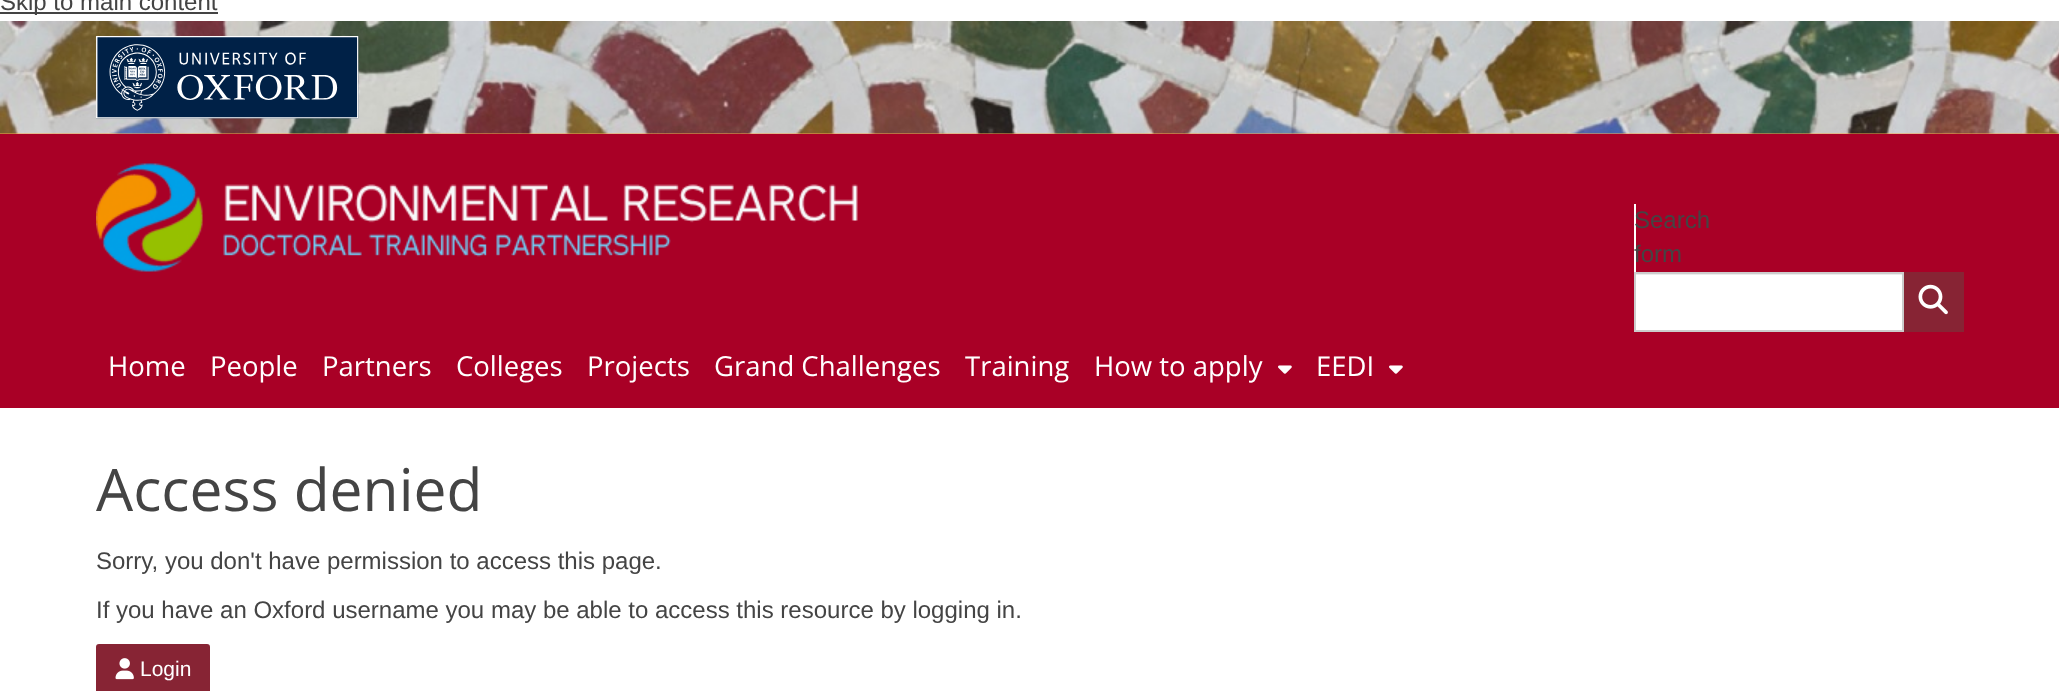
<?xml version="1.0" encoding="UTF-8"?>
<svg xmlns="http://www.w3.org/2000/svg" xmlns:xlink="http://www.w3.org/1999/xlink" width="2059" height="691">
  <rect width="100%" height="100%" fill="#ffffff" />
  <rect y="12" width="218" height="2" fill="#444444" />
  <rect y="133" width="2059" height="1" fill="#f9a34d" />
  <image x="0" y="21" width="2059" height="113" xlink:href="image1.png" />
  <image x="96" y="36" width="263" height="83" xlink:href="image2.png" />
  <rect y="134" width="2059" height="274" fill="#a90026" />
  <image x="96" y="163" width="762" height="109" xlink:href="image3.png" />
  <rect x="1634" y="204" width="2" height="68" fill="#ffffff" />
  <rect x="1636" y="275" width="266" height="55" fill="#ffffff" />
  <rect x="1635" y="274" width="267" height="1" fill="#ececec" />
  <rect x="1635" y="273" width="268" height="58" fill="none" stroke="#cccccc" stroke-width="2" />
  <rect x="1904" y="272" width="60" height="60" fill="#872434" />
  <image x="1918" y="284" width="30" height="31" xlink:href="image4.png" />
  <image x="1278" y="365" width="14" height="9" xlink:href="image5.png" />
  <image x="1389" y="365" width="14" height="9" xlink:href="image5.png" />
  <rect x="97" y="645" width="112" height="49" rx="2" fill="#872434" stroke="#872434" stroke-width="2" />
  <image x="115" y="658" width="19" height="22" xlink:href="image6.png" />
  <text x="0" y="10" style="font-family: Liberation Sans; font-size: 24px; fill: #444444">Skip to main content</text>
  <text x="1634" y="228" style="font-family: Liberation Sans; font-size: 24px; fill: #444444">Search</text>
  <text x="1634" y="262" style="font-family: Liberation Sans; font-size: 24px; fill: #444444">form</text>
  <text x="108" y="376" style="font-family: Open Sans; font-size: 27.5px; fill: #ffffff">Home</text>
  <text x="210" y="376" style="font-family: Open Sans; font-size: 27.5px; fill: #ffffff">People</text>
  <text x="322" y="376" style="font-family: Open Sans; font-size: 27.5px; fill: #ffffff">Partners</text>
  <text x="456" y="376" style="font-family: Open Sans; font-size: 27.5px; fill: #ffffff">Colleges</text>
  <text x="587" y="376" style="font-family: Open Sans; font-size: 27.5px; fill: #ffffff">Projects</text>
  <text x="714" y="376" style="font-family: Open Sans; font-size: 27.5px; fill: #ffffff">Grand Challenges</text>
  <text x="965" y="376" style="font-family: Open Sans; font-size: 27.5px; fill: #ffffff">Training</text>
  <text x="1094" y="376" style="font-family: Open Sans; font-size: 27.5px; fill: #ffffff">How to apply</text>
  <text x="1316" y="376" style="font-family: Open Sans; font-size: 27.5px; fill: #ffffff">EEDI</text>
  <text x="96" y="511" style="font-family: Open Sans; font-size: 58.75px; fill: #444444">Access denied</text>
  <text x="96" y="569" style="font-family: Liberation Sans; font-size: 24px; fill: #444444">Sorry, you don't have permission to access this page.</text>
  <text x="96" y="618" style="font-family: Liberation Sans; font-size: 24px; fill: #444444">If you have an Oxford username you may be able to access this resource by logging in.</text>
  <text x="140" y="676" style="font-family: Liberation Sans; font-size: 21px; fill: #ffffff">Login</text>
</svg>
